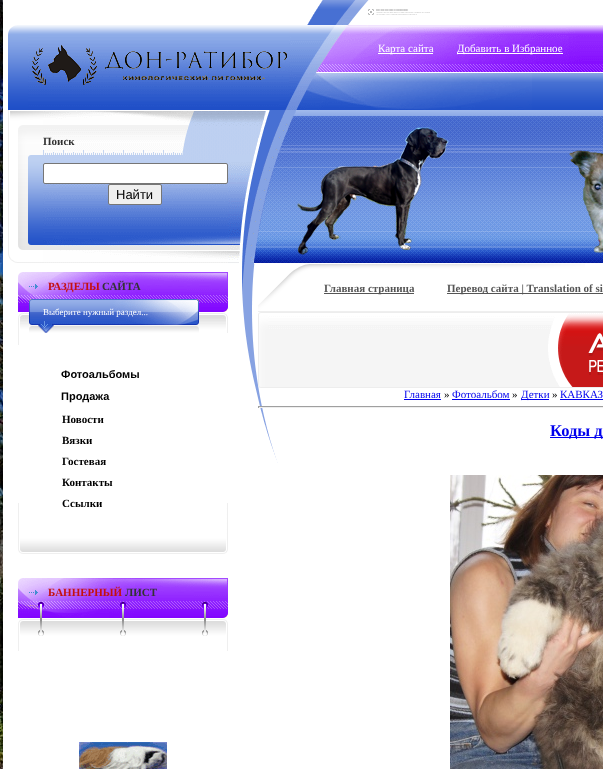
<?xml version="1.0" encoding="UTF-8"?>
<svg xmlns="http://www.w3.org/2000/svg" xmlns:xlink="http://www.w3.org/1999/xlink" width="603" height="769">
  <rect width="100%" height="100%" fill="#ffffff" />
  <image x="0" y="0" width="3" height="769" xlink:href="image1.png" />
  <image x="8" y="25" width="20" height="238" xlink:href="image2.png" />
  <image x="313" y="0" width="117" height="15" xlink:href="image3.png" />
  <image x="28" y="25" width="261" height="85" xlink:href="image4.png" />
  <image x="289" y="15" width="79" height="95" xlink:href="image5.png" />
  <image x="368" y="72" width="235" height="38" xlink:href="image6.png" />
  <image x="368" y="25" width="235" height="47" xlink:href="image7.png" />
  <rect x="378" y="53" width="55" height="1" fill="#ffffff" />
  <rect x="457" y="53" width="106" height="1" fill="#ffffff" />
  <image x="368" y="73" width="164" height="37" xlink:href="image8.png" />
  <image x="28" y="111" width="15" height="152" xlink:href="image9.png" />
  <image x="43" y="111" width="185" height="152" xlink:href="image10.png" />
  <rect x="43.5" y="163.5" width="184" height="20" rx="1.5" fill="#ffffff" stroke="#767676" />
  <rect x="108.5" y="184.5" width="53" height="20" rx="1.5" fill="#efefef" stroke="#767676" />
  <image x="228" y="110" width="68" height="154" xlink:href="image11.png" />
  <image x="296" y="110" width="307" height="153" xlink:href="image12.png" />
  <image x="297" y="126" width="152" height="129" xlink:href="image13.png" />
  <image x="569" y="150" width="34" height="103" xlink:href="image14.png" />
  <image x="242" y="264" width="343" height="199" xlink:href="image15.png" />
  <image x="18" y="503" width="210" height="51" xlink:href="image16.png" />
  <image x="18" y="272" width="210" height="27" xlink:href="image17.png" />
  <image x="18" y="299" width="210" height="26" xlink:href="image18.png" />
  <image x="18" y="325" width="210" height="20" xlink:href="image19.png" />
  <image x="18" y="578" width="210" height="27" xlink:href="image20.png" />
  <image x="18" y="605" width="210" height="46" xlink:href="image21.png" />
  <image x="79" y="742" width="88" height="27" xlink:href="image22.png" />
  <rect x="324" y="293" width="90" height="1" fill="#555555" />
  <rect x="447" y="293" width="156" height="1" fill="#555555" />
  <rect x="258" y="311" width="345" height="1" fill="#efefef" />
  <image x="258" y="312" width="10" height="76" xlink:href="image23.png" />
  <image x="268" y="312" width="335" height="76" xlink:href="image24.png" />
  <rect x="404" y="399" width="37" height="1" fill="#0000ee" />
  <rect x="452" y="399" width="58" height="1" fill="#0000ee" />
  <rect x="521" y="399" width="28" height="1" fill="#0000ee" />
  <rect x="560" y="399" width="43" height="1" fill="#0000ee" />
  <rect x="258" y="406" width="345" height="1" fill="#9f9f9f" />
  <rect x="258" y="407" width="345" height="1" fill="#eeeeee" />
  <rect x="258" y="406" width="1" height="2" fill="#9f9f9f" />
  <rect x="550" y="437" width="53" height="1" fill="#0000ee" />
  <image x="450" y="475" width="153" height="294" xlink:href="image25.png" />
  <text x="378" y="52" style="font-family: Liberation Serif; font-size: 11px; fill: #ffffff">Карта сайта</text>
  <text x="457" y="52" style="font-family: Liberation Serif; font-size: 11px; fill: #ffffff">Добавить в Избранное</text>
  <text x="43" y="145" style="font-family: Liberation Serif; font-size: 11px; font-weight: bold; fill: #333333">Поиск</text>
  <text x="116" y="199" style="font-family: Liberation Sans; font-size: 13px; fill: #000000">Найти</text>
  <text x="48" y="290" style="font-family: Liberation Serif; font-size: 11px; font-weight: bold; fill: #c4100f">РАЗДЕЛЫ</text>
  <text x="102" y="290" style="font-family: Liberation Serif; font-size: 11px; font-weight: bold; fill: #333333">САЙТА</text>
  <text x="43" y="315" style="font-family: Liberation Serif; font-size: 9px; fill: #ffffff">Выберите нужный раздел...</text>
  <text x="61" y="378" style="font-family: Liberation Sans; font-size: 11px; font-weight: bold; fill: #000000">Фотоальбомы</text>
  <text x="61" y="400" style="font-family: Liberation Sans; font-size: 11px; font-weight: bold; fill: #000000">Продажа</text>
  <text x="62" y="423" style="font-family: Liberation Serif; font-size: 11px; font-weight: bold; fill: #000000">Новости</text>
  <text x="62" y="444" style="font-family: Liberation Serif; font-size: 11px; font-weight: bold; fill: #000000">Вязки</text>
  <text x="62" y="465" style="font-family: Liberation Serif; font-size: 11px; font-weight: bold; fill: #000000">Гостевая</text>
  <text x="62" y="486" style="font-family: Liberation Serif; font-size: 11px; font-weight: bold; fill: #000000">Контакты</text>
  <text x="62" y="507" style="font-family: Liberation Serif; font-size: 11px; font-weight: bold; fill: #000000">Ссылки</text>
  <text x="48" y="596" style="font-family: Liberation Serif; font-size: 11px; font-weight: bold; fill: #c4100f">БАННЕРНЫЙ</text>
  <text x="125" y="596" style="font-family: Liberation Serif; font-size: 11px; font-weight: bold; fill: #333333">ЛИСТ</text>
  <text x="324" y="292" style="font-family: Liberation Serif; font-size: 11px; font-weight: bold; fill: #555555">Главная страница</text>
  <text x="447" y="292" style="font-family: Liberation Serif; font-size: 11px; font-weight: bold; fill: #555555">Перевод сайта | Translation of si</text>
  <text x="404" y="398" style="font-family: Liberation Serif; font-size: 11px; fill: #0000ee">Главная</text>
  <text x="444" y="398" style="font-family: Liberation Serif; font-size: 11px; fill: #000000">»</text>
  <text x="452" y="398" style="font-family: Liberation Serif; font-size: 11px; fill: #0000ee">Фотоальбом</text>
  <text x="512" y="398" style="font-family: Liberation Serif; font-size: 11px; fill: #000000">»</text>
  <text x="521" y="398" style="font-family: Liberation Serif; font-size: 11px; fill: #0000ee">Детки</text>
  <text x="552" y="398" style="font-family: Liberation Serif; font-size: 11px; fill: #000000">»</text>
  <text x="560" y="398" style="font-family: Liberation Serif; font-size: 11px; fill: #0000ee">КАВКАЗ</text>
  <text x="550" y="436" style="font-family: Liberation Serif; font-size: 16.5px; font-weight: bold; fill: #0000ee">Коды д</text>
</svg>
